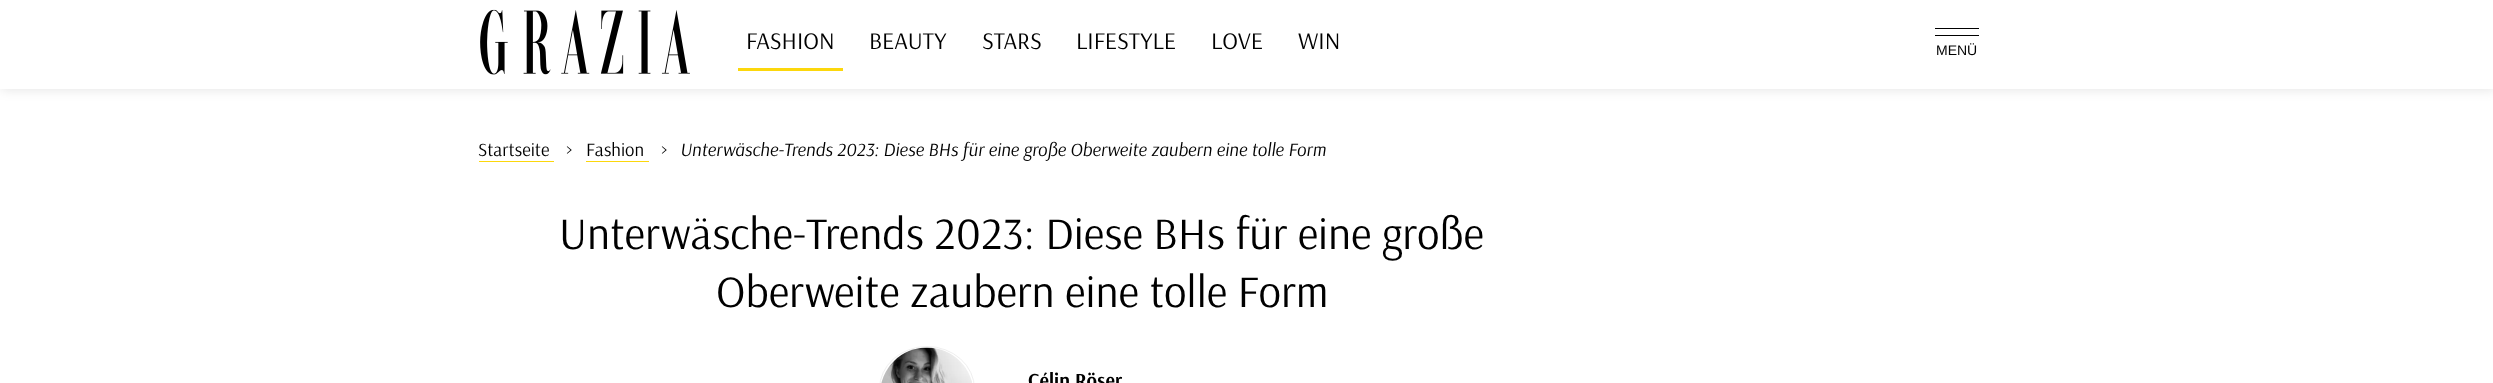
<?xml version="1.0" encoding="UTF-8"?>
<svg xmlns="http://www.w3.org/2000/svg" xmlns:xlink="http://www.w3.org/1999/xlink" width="2493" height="383">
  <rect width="100%" height="100%" fill="#ffffff" />
  <rect x="1" y="1" width="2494" height="89" fill="#000000" fill-opacity="0.1" filter="blur(6px)" />
  <rect width="2493" height="89" fill="#ffffff" />
  <image x="480" y="9" width="210" height="66" xlink:href="image1.png" />
  <rect x="738" y="68" width="105" height="3" fill="#fcd70c" />
  <rect x="1935" y="28" width="44" height="1" fill="#000000" />
  <rect x="1935" y="35" width="44" height="1" fill="#000000" />
  <rect x="479" y="161" width="75" height="1" fill="#fcd70c" />
  <rect x="586" y="161" width="63" height="1" fill="#fcd70c" />
  <rect x="879.5" y="346.5" width="95" height="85" rx="47.5" fill="none" stroke="#efefef" />
  <image x="881" y="347" width="91" height="36" xlink:href="image2.png" />
  <text x="746" y="49" style="font-family: Arsenal; font-size: 24px; fill: #000000">FASHION</text>
  <text x="869" y="49" style="font-family: Arsenal; font-size: 24px; fill: #000000">BEAUTY</text>
  <text x="982" y="49" style="font-family: Arsenal; font-size: 24px; fill: #000000">STARS</text>
  <text x="1076" y="49" style="font-family: Arsenal; font-size: 24px; fill: #000000">LIFESTYLE</text>
  <text x="1211" y="49" style="font-family: Arsenal; font-size: 24px; fill: #000000">LOVE</text>
  <text x="1298" y="49" style="font-family: Arsenal; font-size: 24px; fill: #000000">WIN</text>
  <text x="1936" y="55" style="font-family: Liberation Sans; font-size: 14px; fill: #000000">MENÜ</text>
  <text x="478" y="156" style="font-family: Arsenal; font-size: 18.75px; fill: #000000">Startseite</text>
  <text x="566" y="156" style="font-family: Arsenal; font-size: 18.75px; fill: #000000">&gt;</text>
  <text x="586" y="156" style="font-family: Arsenal; font-size: 18.75px; fill: #000000">Fashion</text>
  <text x="661" y="156" style="font-family: Arsenal; font-size: 18.75px; fill: #000000">&gt;</text>
  <text x="680" y="156" style="font-family: Arsenal; font-size: 18.75px; font-style: italic; fill: #000000">Unterwäsche-Trends 2023: Diese BHs für eine große Oberweite zaubern eine tolle Form</text>
  <text x="559" y="249" style="font-family: Arsenal; font-size: 45px; fill: #000000">Unterwäsche-Trends 2023: Diese BHs für eine große</text>
  <text x="716" y="307" style="font-family: Arsenal; font-size: 45px; fill: #000000">Oberweite zaubern eine tolle Form</text>
  <text x="1028" y="387" style="font-family: Arsenal; font-size: 20px; font-weight: bold; fill: #000000">Célin Röser</text>
</svg>
